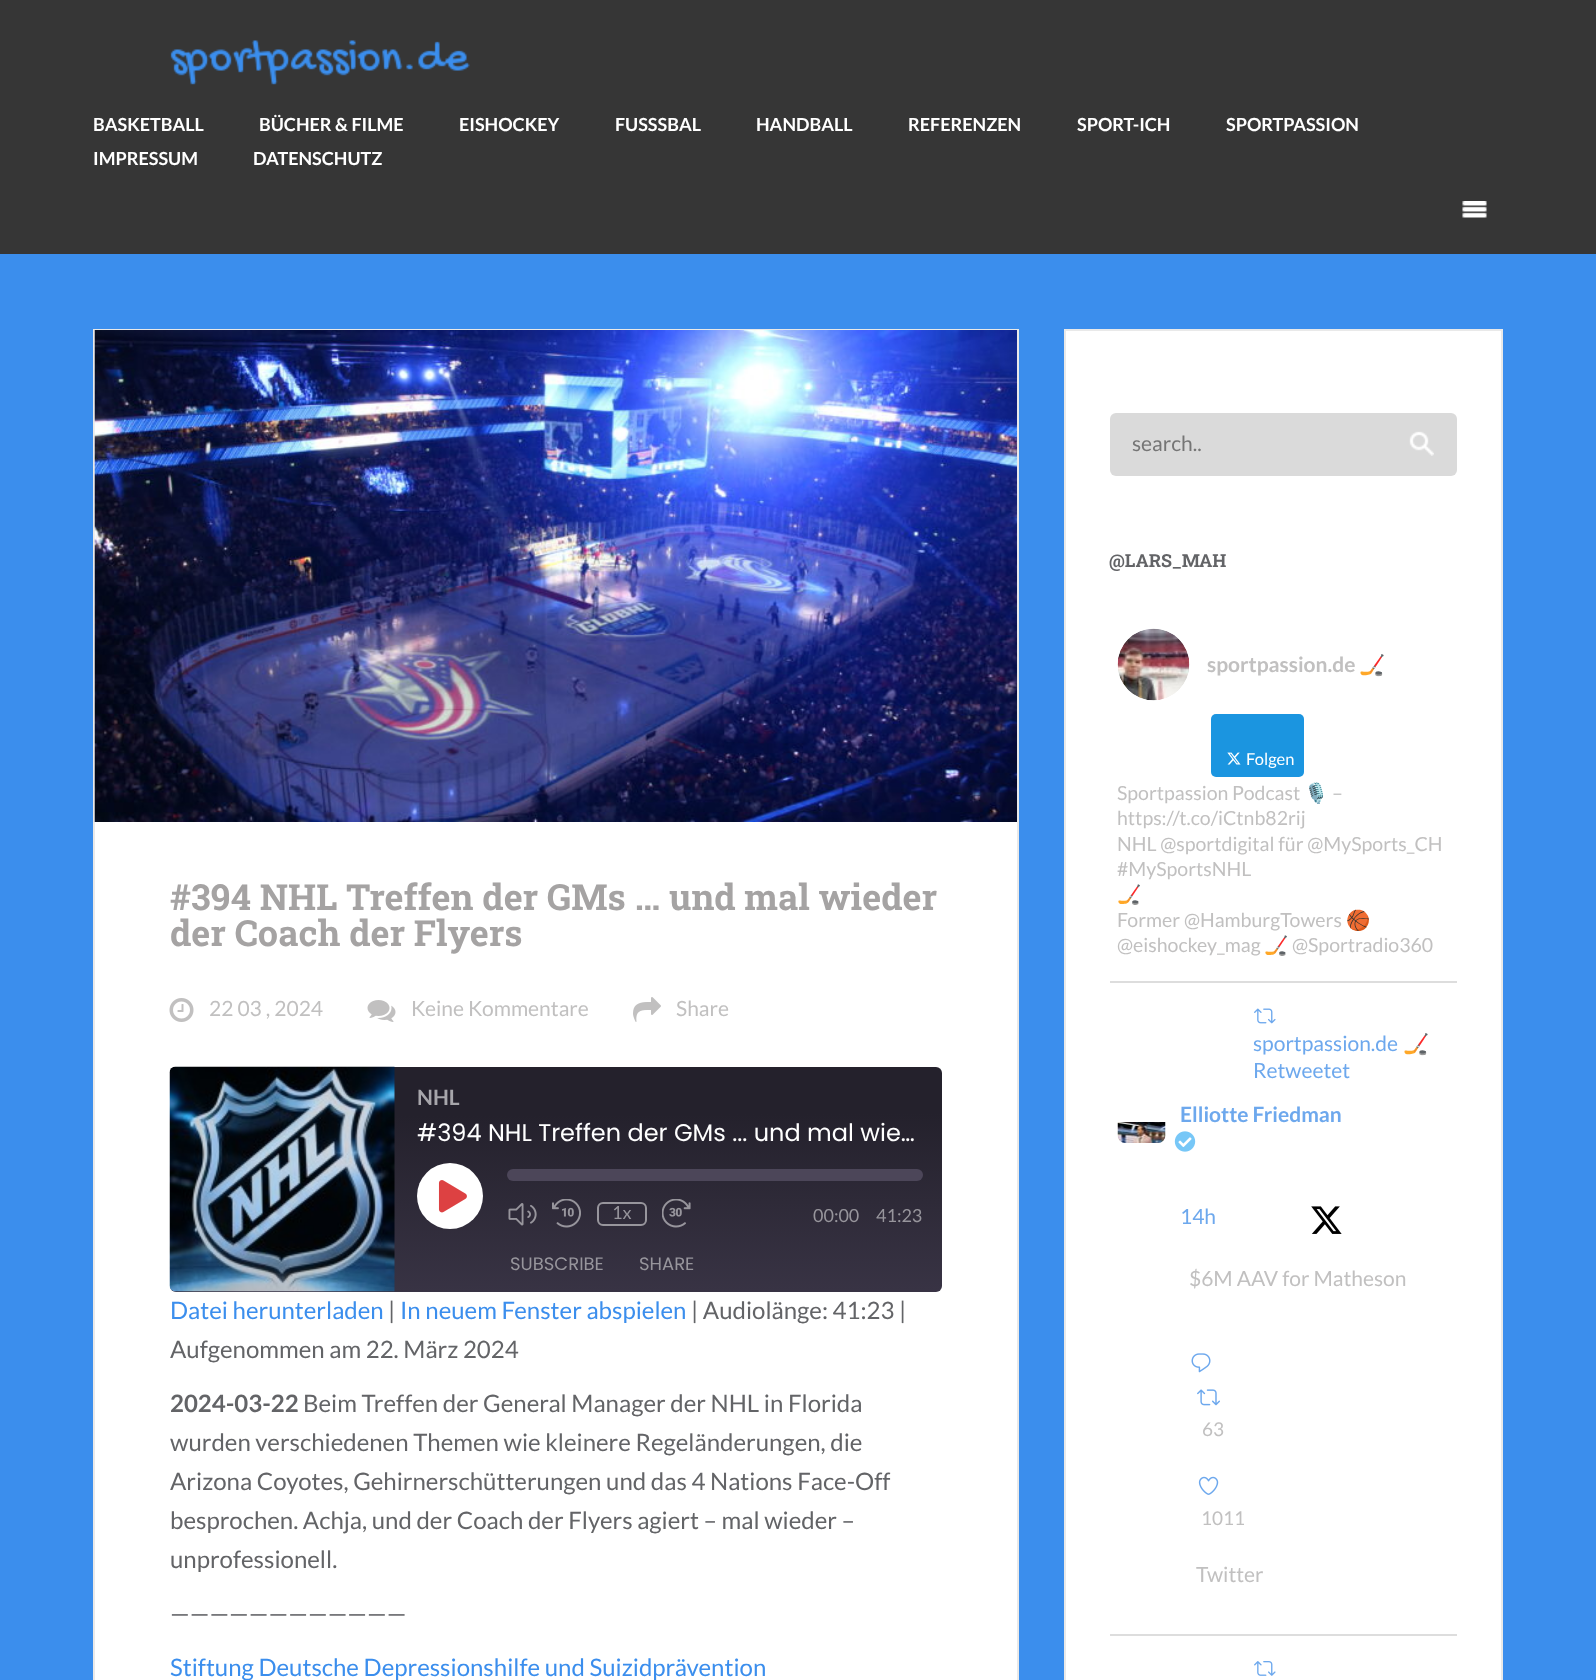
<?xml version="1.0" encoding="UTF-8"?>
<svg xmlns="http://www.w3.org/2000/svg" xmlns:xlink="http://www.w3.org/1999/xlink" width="1596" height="1680">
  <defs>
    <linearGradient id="g1" gradientUnits="userSpaceOnUse" x1="556" y1="1294" x2="555" y2="1064"><stop offset="0.01" stop-color="#383344" /><stop offset="0.78" stop-color="#24212c" /></linearGradient>
  </defs>
  <rect width="100%" height="100%" fill="#3b8eed" />
  <rect width="1596" height="254" fill="#363636" />
  <image x="170" y="40" width="300" height="45" xlink:href="image1.png" />
  <image x="1462" y="201" width="25" height="17" xlink:href="image2.png" />
  <rect x="93" y="329" width="926" height="1" fill="#e9e9e9" />
  <rect x="1017" y="329" width="2" height="493" fill="#e9e9e9" />
  <rect x="93" y="329" width="2" height="493" fill="#e9e9e9" />
  <image x="94" y="330" width="923" height="492" xlink:href="image3.png" />
  <rect x="95" y="822" width="922" height="858" fill="#ffffff" />
  <rect x="1017" y="822" width="2" height="858" fill="#e9e9e9" />
  <rect x="93" y="822" width="2" height="858" fill="#e9e9e9" />
  <image x="169" y="998" width="25" height="24" xlink:href="image4.png" />
  <image x="367" y="1000" width="29" height="22" xlink:href="image5.png" />
  <image x="633" y="997" width="28" height="25" xlink:href="image6.png" />
  <rect x="170" y="1067" width="772" height="225" rx="6" fill="url(#g1)" />
  <image x="169" y="1066" width="226" height="226" xlink:href="image7.png" />
  <circle cx="450" cy="1196" r="33" fill="#ffffff" />
  <image x="438" y="1180" width="29" height="33" xlink:href="image8.png" />
  <rect x="507" y="1169" width="416" height="12" rx="6" fill="#4c4659" />
  <image x="508" y="1203" width="29" height="23" xlink:href="image9.png" />
  <image x="552" y="1199" width="29" height="29" xlink:href="image10.png" />
  <rect x="598" y="1203" width="48" height="22" rx="5" fill="none" stroke="#ffffff" stroke-opacity="0.5" stroke-width="2" />
  <image x="662" y="1199" width="29" height="29" xlink:href="image11.png" />
  <rect x="1065" y="330" width="437" height="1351" fill="#ffffff" stroke="#e9e9e9" stroke-width="2" />
  <rect x="1110" y="413" width="347" height="63" rx="6" fill="#dadada" />
  <image x="1409" y="431" width="25" height="25" xlink:href="image12.png" />
  <rect x="1110" y="981" width="347" height="2" fill="#dddddd" />
  <image x="1117" y="628" width="73" height="73" xlink:href="image13.png" />
  <rect x="1211" y="714" width="93" height="63" rx="5" fill="#1b95e0" />
  <image x="1227" y="752" width="14" height="13" xlink:href="image14.png" />
  <rect x="1110" y="1634" width="347" height="2" fill="#dddddd" />
  <image x="1254" y="1008" width="22" height="16" xlink:href="image15.png" />
  <image x="1174" y="1131" width="22" height="21" xlink:href="image16.png" />
  <image x="1117" y="1122" width="49" height="21" xlink:href="image17.png" />
  <image x="1311" y="1206" width="31" height="28" xlink:href="image18.png" />
  <image x="1191" y="1353" width="20" height="20" xlink:href="image19.png" />
  <image x="1197" y="1389" width="23" height="17" xlink:href="image20.png" />
  <image x="1198" y="1476" width="21" height="19" xlink:href="image21.png" />
  <image x="1254" y="1661" width="22" height="15" xlink:href="image22.png" />
  <text x="93" y="131" style="font-family: Lato; font-size: 18px; font-weight: bold; fill: #ffffff">BASKETBALL</text>
  <text x="259" y="131" style="font-family: Lato; font-size: 18px; font-weight: bold; fill: #ffffff">BÜCHER &amp; FILME</text>
  <text x="459" y="131" style="font-family: Lato; font-size: 18px; font-weight: bold; fill: #ffffff">EISHOCKEY</text>
  <text x="615" y="131" style="font-family: Lato; font-size: 18px; font-weight: bold; fill: #ffffff">FUSSSBAL</text>
  <text x="756" y="131" style="font-family: Lato; font-size: 18px; font-weight: bold; fill: #ffffff">HANDBALL</text>
  <text x="908" y="131" style="font-family: Lato; font-size: 18px; font-weight: bold; fill: #ffffff">REFERENZEN</text>
  <text x="1077" y="131" style="font-family: Lato; font-size: 18px; font-weight: bold; fill: #ffffff">SPORT-ICH</text>
  <text x="1226" y="131" style="font-family: Lato; font-size: 18px; font-weight: bold; fill: #ffffff">SPORTPASSION</text>
  <text x="93" y="165" style="font-family: Lato; font-size: 18px; font-weight: bold; fill: #ffffff">IMPRESSUM</text>
  <text x="253" y="165" style="font-family: Lato; font-size: 18px; font-weight: bold; fill: #ffffff">DATENSCHUTZ</text>
  <text x="170" y="910" style="font-family: Roboto Slab; font-size: 36px; font-weight: bold; fill: #a5a3a3">#394 NHL Treffen der GMs … und mal wieder</text>
  <text x="170" y="946" style="font-family: Roboto Slab; font-size: 36px; font-weight: bold; fill: #a5a3a3">der Coach der Flyers</text>
  <text x="209" y="1016" style="font-family: Lato; font-size: 21px; fill: #c1c0c0">22 03 , 2024</text>
  <text x="411" y="1016" style="font-family: Lato; font-size: 21px; fill: #c1c0c0">Keine Kommentare</text>
  <text x="676" y="1016" style="font-family: Lato; font-size: 21px; fill: #c1c0c0">Share</text>
  <text x="417" y="1105" style="font-family: Lato; font-size: 21px; font-weight: bold; fill: #a7a6ab">NHL</text>
  <text x="417" y="1141" style="font-family: Poppins; font-size: 24px; fill: #ffffff">#394 NHL Treffen der GMs ... und mal wie…</text>
  <text x="612" y="1219" style="font-family: Lato; font-size: 18px; fill: #97959c">1x</text>
  <text x="813" y="1222" style="font-family: Lato; font-size: 18px; fill: #97959c">00:00</text>
  <text x="876" y="1222" style="font-family: Lato; font-size: 18px; fill: #97959c">41:23</text>
  <text x="510" y="1270" style="font-family: Poppins; font-size: 18px; fill: #97959c">SUBSCRIBE</text>
  <text x="639" y="1270" style="font-family: Poppins; font-size: 18px; fill: #97959c">SHARE</text>
  <text x="170" y="1319" style="font-family: Lato; font-size: 24px; fill: #3b8eed">Datei herunterladen</text>
  <text x="388" y="1319" style="font-family: Lato; font-size: 24px; fill: #636467">|</text>
  <text x="400" y="1319" style="font-family: Lato; font-size: 24px; fill: #3b8eed">In neuem Fenster abspielen</text>
  <text x="691" y="1319" style="font-family: Lato; font-size: 24px; fill: #636467">| Audiolänge: 41:23 |</text>
  <text x="170" y="1358" style="font-family: Lato; font-size: 24px; fill: #636467">Aufgenommen am 22. März 2024</text>
  <text x="170" y="1412" style="font-family: Lato; font-size: 24px; font-weight: bold; fill: #636467">2024-03-22</text>
  <text x="303" y="1412" style="font-family: Lato; font-size: 24px; fill: #636467">Beim Treffen der General Manager der NHL in Florida</text>
  <text x="170" y="1451" style="font-family: Lato; font-size: 24px; fill: #636467">wurden verschiedenen Themen wie kleinere Regeländerungen, die</text>
  <text x="170" y="1490" style="font-family: Lato; font-size: 24px; fill: #636467">Arizona Coyotes, Gehirnerschütterungen und das 4 Nations Face-Off</text>
  <text x="170" y="1529" style="font-family: Lato; font-size: 24px; fill: #636467">besprochen. Achja, und der Coach der Flyers agiert – mal wieder –</text>
  <text x="170" y="1568" style="font-family: Lato; font-size: 24px; fill: #636467">unprofessionell.</text>
  <text x="170" y="1622" style="font-family: Lato; font-size: 24px; fill: #636467">————————————</text>
  <text x="170" y="1676" style="font-family: Lato; font-size: 24px; fill: #3b8eed">Stiftung Deutsche Depressionshilfe und Suizidprävention</text>
  <text x="1132" y="451" style="font-family: Lato; font-size: 21px; fill: #757575">search..</text>
  <text x="1109" y="567" style="font-family: Roboto Slab; font-size: 18px; font-weight: bold; fill: #636467">@LARS_MAH</text>
  <text x="1207" y="672" style="font-family: Lato; font-size: 21px; font-weight: bold; fill: #c1c0c0">sportpassion.de</text>
  <text x="1359" y="672" style="font-family: Noto Color Emoji; font-size: 21px; font-weight: bold; fill: #c1c0c0">🏒</text>
  <text x="1246" y="765" style="font-family: Lato; font-size: 16.5px; fill: #ffffff">Folgen</text>
  <text x="1117" y="800" style="font-family: Lato; font-size: 19.5px; fill: #c1c0c0">Sportpassion Podcast</text>
  <text x="1304" y="800" style="font-family: Noto Color Emoji; font-size: 19.5px; fill: #c1c0c0">🎙️</text>
  <text x="1332" y="800" style="font-family: Lato; font-size: 19.5px; fill: #c1c0c0">–</text>
  <text x="1117" y="825" style="font-family: Lato; font-size: 19.5px; fill: #c1c0c0">https://t.co/iCtnb82rij</text>
  <text x="1117" y="851" style="font-family: Lato; font-size: 19.5px; fill: #c1c0c0">NHL @sportdigital für @MySports_CH</text>
  <text x="1117" y="876" style="font-family: Lato; font-size: 19.5px; fill: #c1c0c0">#MySportsNHL</text>
  <text x="1117" y="901" style="font-family: Noto Color Emoji; font-size: 19.5px; fill: #c1c0c0">🏒</text>
  <text x="1117" y="927" style="font-family: Lato; font-size: 19.5px; fill: #c1c0c0">Former @HamburgTowers</text>
  <text x="1346" y="927" style="font-family: Noto Color Emoji; font-size: 19.5px; fill: #c1c0c0">🏀</text>
  <text x="1117" y="952" style="font-family: Lato; font-size: 19.5px; fill: #c1c0c0">@eishockey_mag</text>
  <text x="1264" y="952" style="font-family: Noto Color Emoji; font-size: 19.5px; fill: #c1c0c0">🏒</text>
  <text x="1292" y="952" style="font-family: Lato; font-size: 19.5px; fill: #c1c0c0">@Sportradio360</text>
  <text x="1253" y="1051" style="font-family: Lato; font-size: 21px; fill: #6da8ed">sportpassion.de</text>
  <text x="1403" y="1051" style="font-family: Noto Color Emoji; font-size: 21px; fill: #6da8ed">🏒</text>
  <text x="1253" y="1078" style="font-family: Lato; font-size: 21px; fill: #6da8ed">Retweetet</text>
  <text x="1180" y="1122" style="font-family: Lato; font-size: 21px; font-weight: bold; fill: #6da8ed">Elliotte Friedman</text>
  <text x="1180" y="1224" style="font-family: Lato; font-size: 21px; fill: #6da8ed">14h</text>
  <text x="1189" y="1286" style="font-family: Lato; font-size: 21px; fill: #c1c0c0">$6M AAV for Matheson</text>
  <text x="1202" y="1436" style="font-family: Lato; font-size: 19px; fill: #c1c0c0">63</text>
  <text x="1201" y="1525" style="font-family: Lato; font-size: 19px; fill: #c1c0c0">1011</text>
  <text x="1196" y="1582" style="font-family: Lato; font-size: 21px; fill: #c1c0c0">Twitter</text>
</svg>
